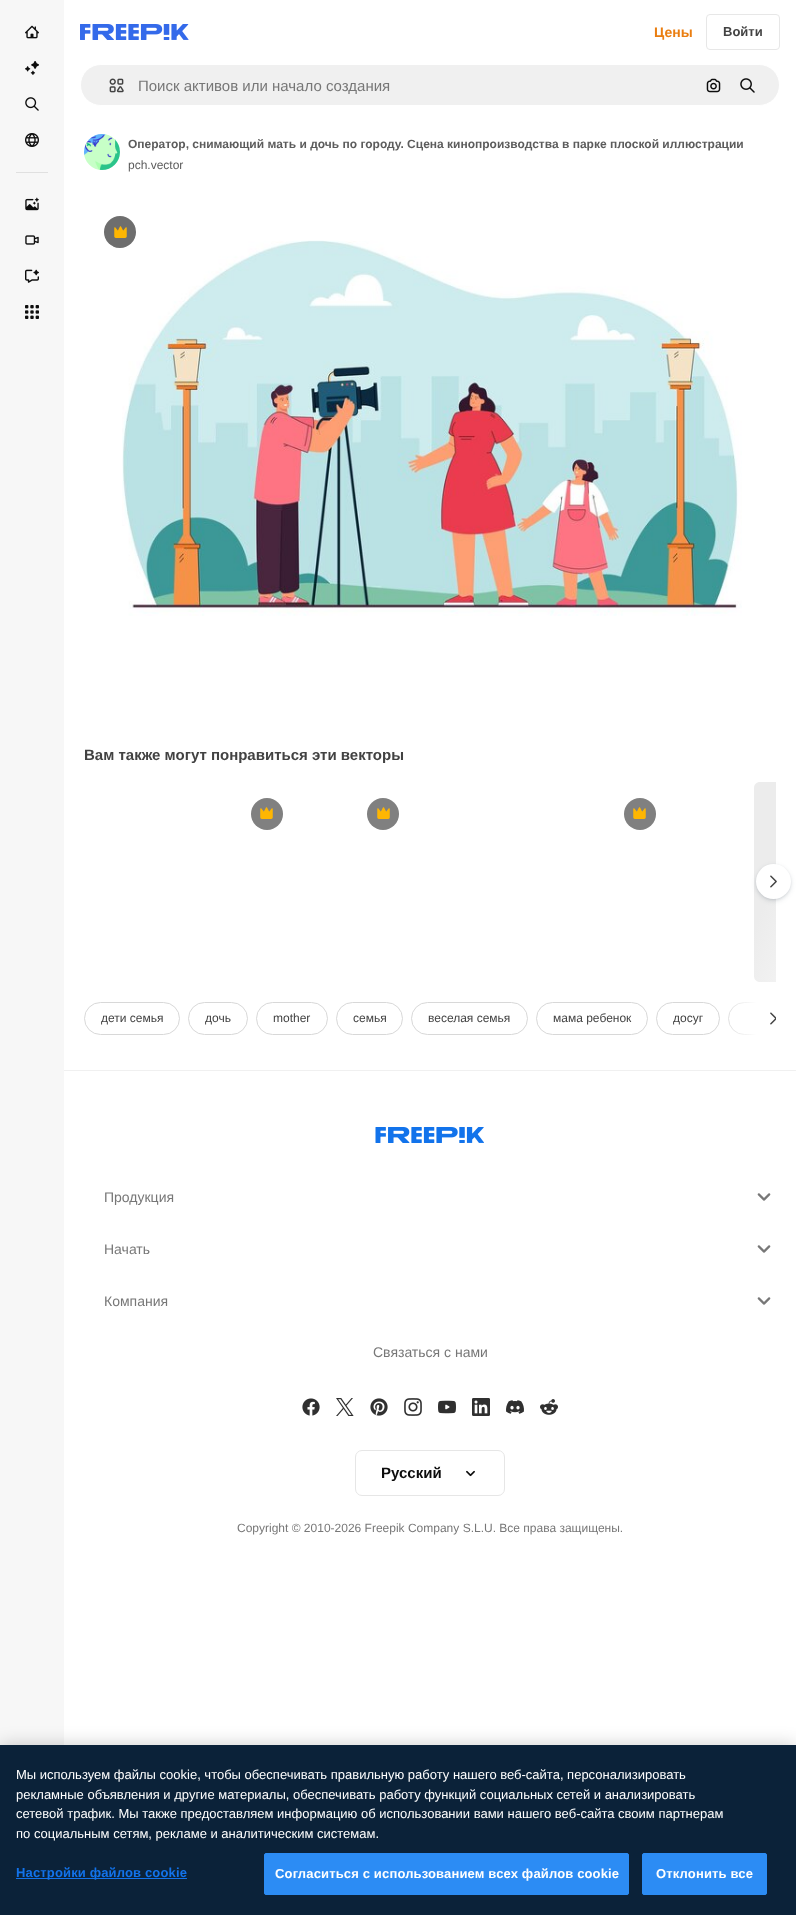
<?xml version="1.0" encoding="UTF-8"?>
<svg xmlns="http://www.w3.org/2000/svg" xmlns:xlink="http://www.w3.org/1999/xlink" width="796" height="1915">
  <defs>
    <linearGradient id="g1" gradientUnits="userSpaceOnUse" x1="757" y1="774" x2="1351" y2="990"><stop offset="0.08" stop-color="#ececec" /><stop offset="0.18" stop-color="#f5f5f5" /><stop offset="0.33" stop-color="#ececec" /></linearGradient>
    <clipPath id="clip1"><rect x="84" y="1002" width="692" height="33" /></clipPath>
    <linearGradient id="g2" gradientUnits="userSpaceOnUse" x1="756" y1="1019" x2="721" y2="1019"><stop offset="0" stop-color="#ffffff" /><stop offset="1" stop-color="#ffffff" stop-opacity="0" /></linearGradient>
  </defs>
  <rect width="100%" height="100%" fill="#ffffff" />
  <rect width="64" height="1745" fill="#f7f7f7" />
  <image x="25" y="25" width="14" height="14" xlink:href="image1.png" />
  <image x="25" y="61" width="14" height="14" xlink:href="image2.png" />
  <image x="25" y="97" width="14" height="14" xlink:href="image3.png" />
  <image x="25" y="133" width="14" height="14" xlink:href="image4.png" />
  <rect x="16" y="172" width="32" height="1" fill="#e0e0e0" />
  <image x="25" y="197" width="14" height="14" xlink:href="image5.png" />
  <image x="25" y="235" width="14" height="10" xlink:href="image6.png" />
  <image x="25" y="269" width="14" height="14" xlink:href="image7.png" />
  <image x="25" y="305" width="14" height="14" xlink:href="image8.png" />
  <image x="80" y="24" width="109" height="16" xlink:href="image9.png" />
  <rect x="706.5" y="14.5" width="73" height="35" rx="3.5" fill="none" stroke="#e7e7e7" />
  <rect x="80.5" y="64.5" width="699" height="41" rx="20.5" fill="#f0f0f0" stroke="#ffffff" />
  <image x="109" y="78" width="15" height="15" xlink:href="image10.png" />
  <image x="706" y="78" width="15" height="15" xlink:href="image11.png" />
  <image x="740" y="78" width="15" height="15" xlink:href="image12.png" />
  <image x="84" y="134" width="36" height="36" xlink:href="image13.png" />
  <image x="122" y="240" width="620" height="376" xlink:href="image15.png" />
  <circle cx="120" cy="232" r="16" fill="#6e6e6e" />
  <image x="114" y="226" width="13" height="12" xlink:href="image14.png" />
  <circle cx="267" cy="814" r="16" fill="#808080" />
  <image x="260" y="807" width="13" height="12" xlink:href="image16.png" />
  <circle cx="383" cy="814" r="16" fill="#808080" />
  <image x="377" y="807" width="13" height="12" xlink:href="image16.png" />
  <circle cx="640" cy="814" r="16" fill="#808080" />
  <image x="633" y="807" width="13" height="12" xlink:href="image16.png" />
  <path d="M 760 782 h 16 v 200 h -16 c -3.5 0 -6 -2.5 -6 -6 v -188 c 0 -3.5 2.5 -6 6 -6 z" fill="url(#g1)" />
  <rect x="756" y="866" width="35" height="35" rx="17.5" fill="#374957" fill-opacity="0.15" filter="blur(2.5px)" />
  <rect x="756" y="865" width="35" height="35" rx="17.5" fill="#374957" fill-opacity="0.1" filter="blur(1px)" />
  <circle cx="773.5" cy="881.5" r="17.5" fill="#ffffff" />
  <image x="770" y="875" width="7" height="13" xlink:href="image17.png" />
  <rect x="84.5" y="1002.5" width="95" height="32" rx="16" fill="none" stroke="#d8d8d8" />
  <rect x="188.5" y="1002.5" width="59" height="32" rx="16" fill="none" stroke="#d8d8d8" />
  <rect x="256.5" y="1002.5" width="71" height="32" rx="16" fill="none" stroke="#d8d8d8" />
  <rect x="336.5" y="1002.5" width="66" height="32" rx="16" fill="none" stroke="#d8d8d8" />
  <rect x="411.5" y="1002.5" width="116" height="32" rx="16" fill="none" stroke="#d8d8d8" />
  <rect x="536.5" y="1002.5" width="111" height="32" rx="16" fill="none" stroke="#d8d8d8" />
  <rect x="656.5" y="1002.5" width="63" height="32" rx="16" fill="none" stroke="#d8d8d8" />
  <g clip-path="url(#clip1)">
    <rect x="728.5" y="1002.5" width="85" height="32" rx="16" fill="none" stroke="#d8d8d8" />
  </g>
  <rect x="756" y="1002" width="20" height="33" fill="#ffffff" />
  <rect x="728" y="1002" width="28" height="33" fill="url(#g2)" />
  <image x="770" y="1012" width="6" height="13" xlink:href="image18.png" />
  <rect x="64" y="1070" width="732" height="1" fill="#f0f0f0" />
  <image x="375" y="1127" width="109" height="16" xlink:href="image19.png" />
  <image x="757" y="1193" width="14" height="8" xlink:href="image20.png" />
  <image x="757" y="1245" width="14" height="8" xlink:href="image20.png" />
  <image x="757" y="1297" width="14" height="8" xlink:href="image20.png" />
  <image x="302" y="1398" width="18" height="18" xlink:href="image21.png" />
  <image x="336" y="1398" width="18" height="18" xlink:href="image22.png" />
  <image x="370" y="1398" width="18" height="18" xlink:href="image23.png" />
  <image x="404" y="1398" width="18" height="18" xlink:href="image24.png" />
  <image x="438" y="1400" width="18" height="14" xlink:href="image25.png" />
  <image x="472" y="1398" width="18" height="18" xlink:href="image26.png" />
  <image x="506" y="1400" width="18" height="14" xlink:href="image27.png" />
  <image x="540" y="1399" width="18" height="16" xlink:href="image28.png" />
  <rect x="355.5" y="1450.5" width="149" height="45" rx="6.5" fill="none" stroke="#e6e6e6" />
  <image x="466" y="1470" width="9" height="7" xlink:href="image29.png" />
  <rect y="1745" width="796" height="170" fill="#000000" fill-opacity="0.2" filter="blur(9px)" />
  <rect y="1745" width="796" height="170" fill="#0b2239" />
  <rect x="16" y="1878" width="171" height="1" fill="#1273eb" />
  <rect x="264.5" y="1853.5" width="364" height="41" rx="1.5" fill="#2c8cf4" stroke="#2c8cf4" />
  <rect x="642.5" y="1853.5" width="124" height="41" rx="1.5" fill="#2c8cf4" stroke="#2c8cf4" />
  <text x="654" y="37" style="font-family: Liberation Sans; font-size: 14px; font-weight: bold; fill: #ea7e11">Цены</text>
  <text x="723" y="36" style="font-family: Liberation Sans; font-size: 13px; font-weight: bold; fill: #424242">Войти</text>
  <text x="138" y="91" style="font-family: Liberation Sans; font-size: 15px; fill: #777777">Поиск активов или начало создания</text>
  <text x="128" y="148" style="font-family: Liberation Sans; font-size: 12px; font-weight: bold; fill: #5c5c5c">Оператор, снимающий мать и дочь по городу. Сцена кинопроизводства в парке плоской иллюстрации</text>
  <text x="128" y="169" style="font-family: Liberation Sans; font-size: 12px; fill: #5c5c5c">pch.vector</text>
  <text x="84" y="760" style="font-family: Liberation Sans; font-size: 15px; font-weight: bold; fill: #424242">Вам также могут понравиться эти векторы</text>
  <text x="101" y="1022" style="font-family: Liberation Sans; font-size: 12px; fill: #424242">дети семья</text>
  <text x="205" y="1022" style="font-family: Liberation Sans; font-size: 12px; fill: #424242">дочь</text>
  <text x="273" y="1022" style="font-family: Liberation Sans; font-size: 12px; fill: #424242">mother</text>
  <text x="353" y="1022" style="font-family: Liberation Sans; font-size: 12px; fill: #424242">семья</text>
  <text x="428" y="1022" style="font-family: Liberation Sans; font-size: 12px; fill: #424242">веселая семья</text>
  <text x="553" y="1022" style="font-family: Liberation Sans; font-size: 12px; fill: #424242">мама ребенок</text>
  <text x="673" y="1022" style="font-family: Liberation Sans; font-size: 12px; fill: #424242">досуг</text>
  <text x="104" y="1202" style="font-family: Liberation Sans; font-size: 14px; fill: #777777">Продукция</text>
  <text x="104" y="1254" style="font-family: Liberation Sans; font-size: 14px; fill: #777777">Начать</text>
  <text x="104" y="1306" style="font-family: Liberation Sans; font-size: 14px; fill: #777777">Компания</text>
  <text x="373" y="1357" style="font-family: Liberation Sans; font-size: 14px; fill: #777777">Связаться с нами</text>
  <text x="381" y="1478" style="font-family: Liberation Sans; font-size: 15px; font-weight: bold; fill: #0d0d0d">Pусский</text>
  <text x="237" y="1532" style="font-family: Liberation Sans; font-size: 12px; fill: #777777">Copyright © 2010-2026 Freepik Company S.L.U. Все права защищены.</text>
  <text x="16" y="1779" style="font-family: Liberation Sans; font-size: 13px; fill: #ffffff">Мы используем файлы cookie, чтобы обеспечивать правильную работу нашего веб-сайта, персонализировать</text>
  <text x="16" y="1799" style="font-family: Liberation Sans; font-size: 13px; fill: #ffffff">рекламные объявления и другие материалы, обеспечивать работу функций социальных сетей и анализировать</text>
  <text x="16" y="1818" style="font-family: Liberation Sans; font-size: 13px; fill: #ffffff">сетевой трафик. Мы также предоставляем информацию об использовании вами нашего веб-сайта своим партнерам</text>
  <text x="16" y="1838" style="font-family: Liberation Sans; font-size: 13px; fill: #ffffff">по социальным сетям, рекламе и аналитическим системам.</text>
  <text x="16" y="1877" style="font-family: Liberation Sans; font-size: 13px; font-weight: bold; letter-spacing: 0.15px; fill: #1273eb">Настройки файлов cookie</text>
  <text x="275" y="1878" style="font-family: Liberation Sans; font-size: 13px; font-weight: bold; letter-spacing: 0.15px; fill: #ffffff">Согласиться с использованием всех файлов cookie</text>
  <text x="656" y="1878" style="font-family: Liberation Sans; font-size: 13px; font-weight: bold; letter-spacing: 0.15px; fill: #ffffff">Отклонить все</text>
</svg>
